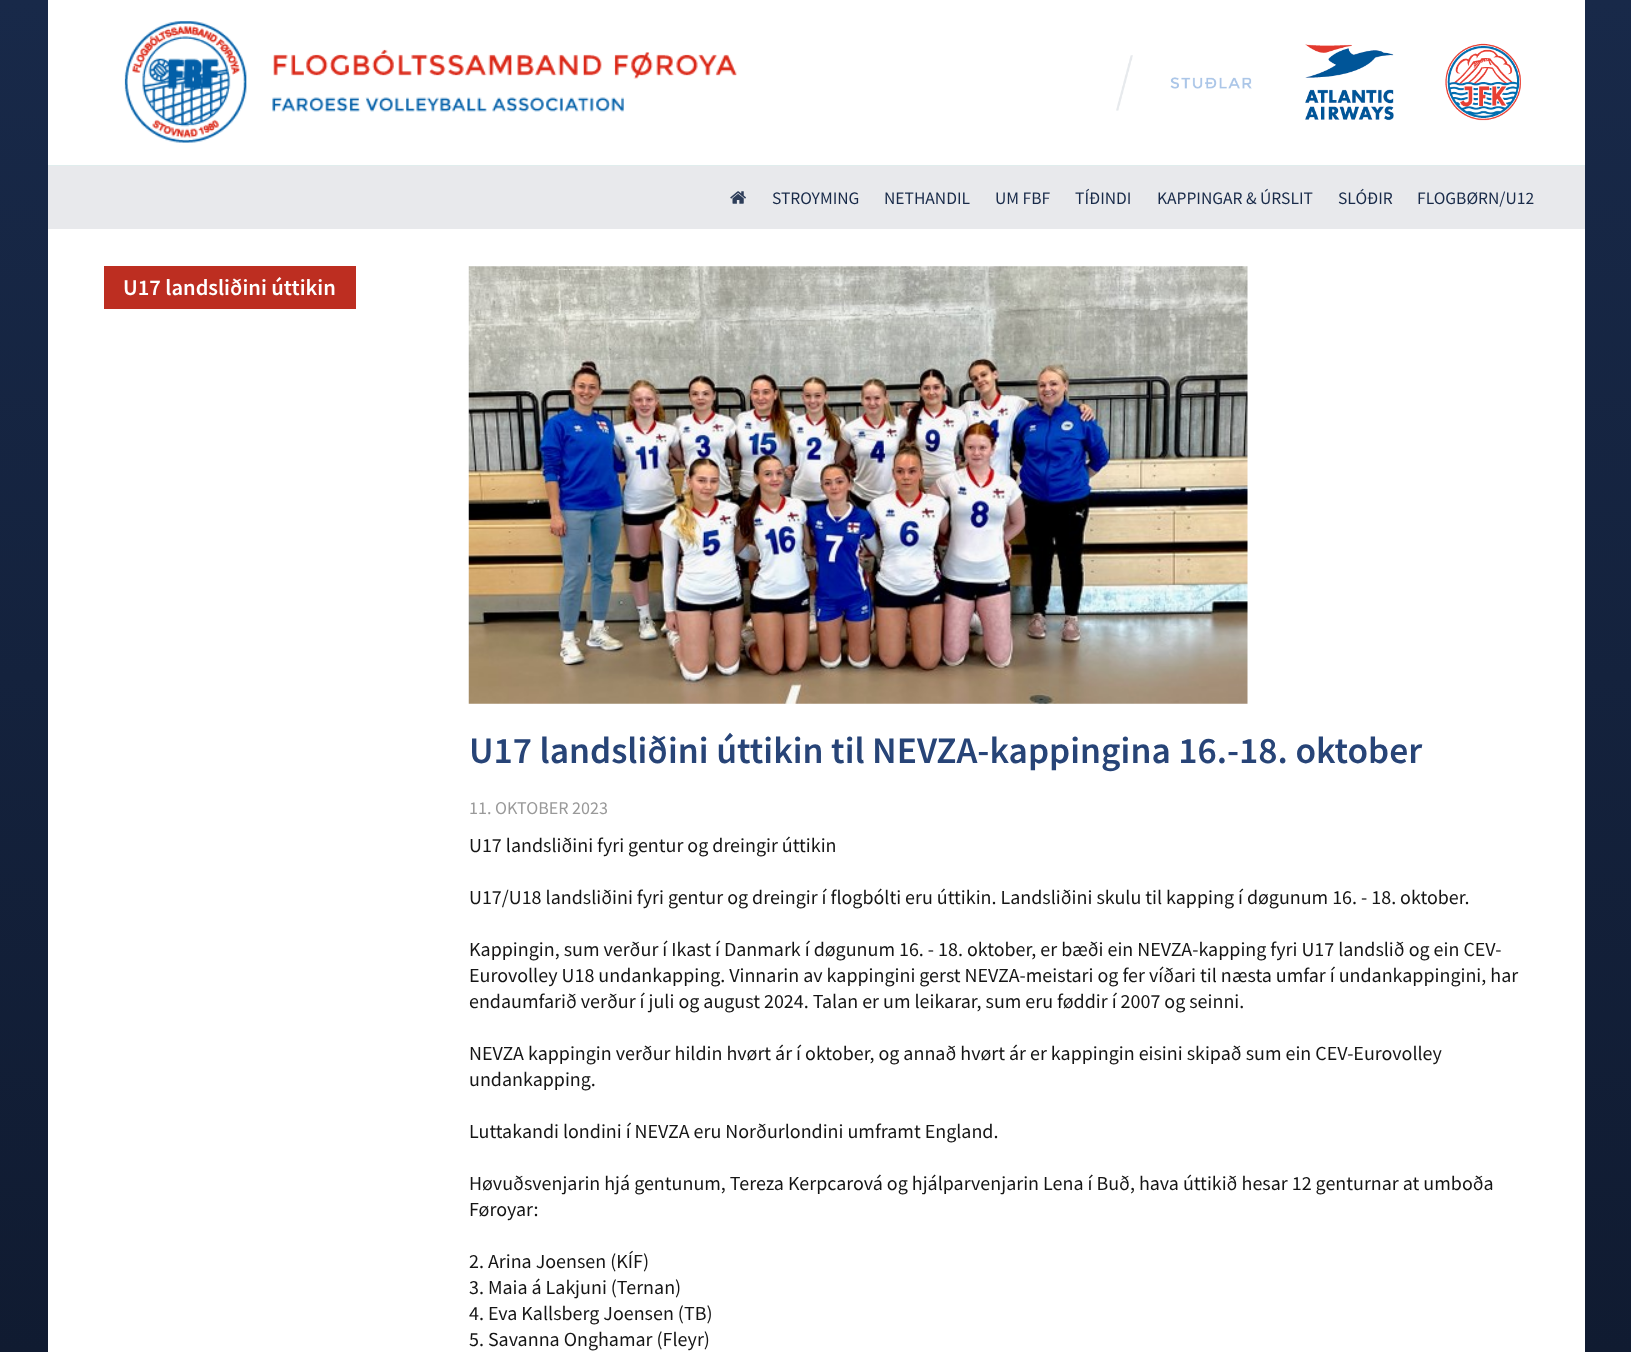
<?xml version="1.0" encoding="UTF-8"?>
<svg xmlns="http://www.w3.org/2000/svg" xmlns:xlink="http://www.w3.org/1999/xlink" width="1631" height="1352">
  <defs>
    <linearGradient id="g1" gradientUnits="userSpaceOnUse" x1="816" y1="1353" x2="816" y2="0"><stop offset="0" stop-color="#101b31" /><stop offset="1" stop-color="#182949" /></linearGradient>
  </defs>
  <rect width="100%" height="100%" fill="#ffffff" />
  <rect width="1631" height="1352" fill="url(#g1)" />
  <rect x="48" width="1537" height="165" fill="#ffffff" />
  <image x="1116" y="43" width="405" height="78" xlink:href="image1.png" />
  <rect x="48" y="165" width="1537" height="1" fill="#e0eded" />
  <image x="124" y="21" width="613" height="122" xlink:href="image2.png" />
  <rect x="48" y="166" width="1537" height="63" fill="#e8e9ec" />
  <image x="730" y="191" width="16" height="13" xlink:href="image3.png" />
  <rect x="48" y="229" width="1537" height="1123" fill="#ffffff" />
  <rect x="104" y="266" width="252" height="43" fill="#bd2e21" />
  <image x="468" y="266" width="780" height="438" xlink:href="image4.png" />
  <text x="772" y="204" style="font-family: Source Sans Pro; font-size: 17.5px; fill: #182a49">STROYMING</text>
  <text x="884" y="204" style="font-family: Source Sans Pro; font-size: 17.5px; fill: #182a49">NETHANDIL</text>
  <text x="995" y="204" style="font-family: Source Sans Pro; font-size: 17.5px; fill: #182a49">UM FBF</text>
  <text x="1075" y="204" style="font-family: Source Sans Pro; font-size: 17.5px; fill: #182a49">TÍÐINDI</text>
  <text x="1157" y="204" style="font-family: Source Sans Pro; font-size: 17.5px; fill: #182a49">KAPPINGAR &amp; ÚRSLIT</text>
  <text x="1338" y="204" style="font-family: Source Sans Pro; font-size: 17.5px; fill: #182a49">SLÓÐIR</text>
  <text x="1417" y="204" style="font-family: Source Sans Pro; font-size: 17.5px; fill: #182a49">FLOGBØRN/U12</text>
  <text x="123" y="295" style="font-family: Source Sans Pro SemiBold; font-size: 22.5px; font-weight: 600; fill: #ffffff">U17 landsliðini úttikin</text>
  <text x="469" y="763" style="font-family: Source Sans Pro SemiBold; font-size: 37.5px; font-weight: 600; fill: #274477">U17 landsliðini úttikin til NEVZA-kappingina 16.-18. oktober</text>
  <text x="469" y="814" style="font-family: Source Sans Pro; font-size: 18px; fill: #999999">11. OKTOBER 2023</text>
  <text x="469" y="852" style="font-family: Source Sans Pro; font-size: 20px; fill: #151515">U17 landsliðini fyri gentur og dreingir úttikin</text>
  <text x="469" y="904" style="font-family: Source Sans Pro; font-size: 20px; fill: #151515">U17/U18 landsliðini fyri gentur og dreingir í flogbólti eru úttikin. Landsliðini skulu til kapping í døgunum 16. - 18. oktober.</text>
  <text x="469" y="956" style="font-family: Source Sans Pro; font-size: 20px; fill: #151515">Kappingin, sum verður í Ikast í Danmark í døgunum 16. - 18. oktober, er bæði ein NEVZA-kapping fyri U17 landslið og ein CEV-</text>
  <text x="469" y="982" style="font-family: Source Sans Pro; font-size: 20px; fill: #151515">Eurovolley U18 undankapping. Vinnarin av kappingini gerst NEVZA-meistari og fer víðari til næsta umfar í undankappingini, har</text>
  <text x="469" y="1008" style="font-family: Source Sans Pro; font-size: 20px; fill: #151515">endaumfarið verður í juli og august 2024. Talan er um leikarar, sum eru føddir í 2007 og seinni.</text>
  <text x="469" y="1060" style="font-family: Source Sans Pro; font-size: 20px; fill: #151515">NEVZA kappingin verður hildin hvørt ár í oktober, og annað hvørt ár er kappingin eisini skipað sum ein CEV-Eurovolley</text>
  <text x="469" y="1086" style="font-family: Source Sans Pro; font-size: 20px; fill: #151515">undankapping.</text>
  <text x="469" y="1138" style="font-family: Source Sans Pro; font-size: 20px; fill: #151515">Luttakandi londini í NEVZA eru Norðurlondini umframt England.</text>
  <text x="469" y="1190" style="font-family: Source Sans Pro; font-size: 20px; fill: #151515">Høvuðsvenjarin hjá gentunum, Tereza Kerpcarová og hjálparvenjarin Lena í Buð, hava úttikið hesar 12 genturnar at umboða</text>
  <text x="469" y="1216" style="font-family: Source Sans Pro; font-size: 20px; fill: #151515">Føroyar:</text>
  <text x="469" y="1268" style="font-family: Source Sans Pro; font-size: 20px; fill: #151515">2. Arina Joensen (KÍF)</text>
  <text x="469" y="1294" style="font-family: Source Sans Pro; font-size: 20px; fill: #151515">3. Maia á Lakjuni (Ternan)</text>
  <text x="469" y="1320" style="font-family: Source Sans Pro; font-size: 20px; fill: #151515">4. Eva Kallsberg Joensen (TB)</text>
  <text x="469" y="1346" style="font-family: Source Sans Pro; font-size: 20px; fill: #151515">5. Savanna Onghamar (Fleyr)</text>
</svg>
